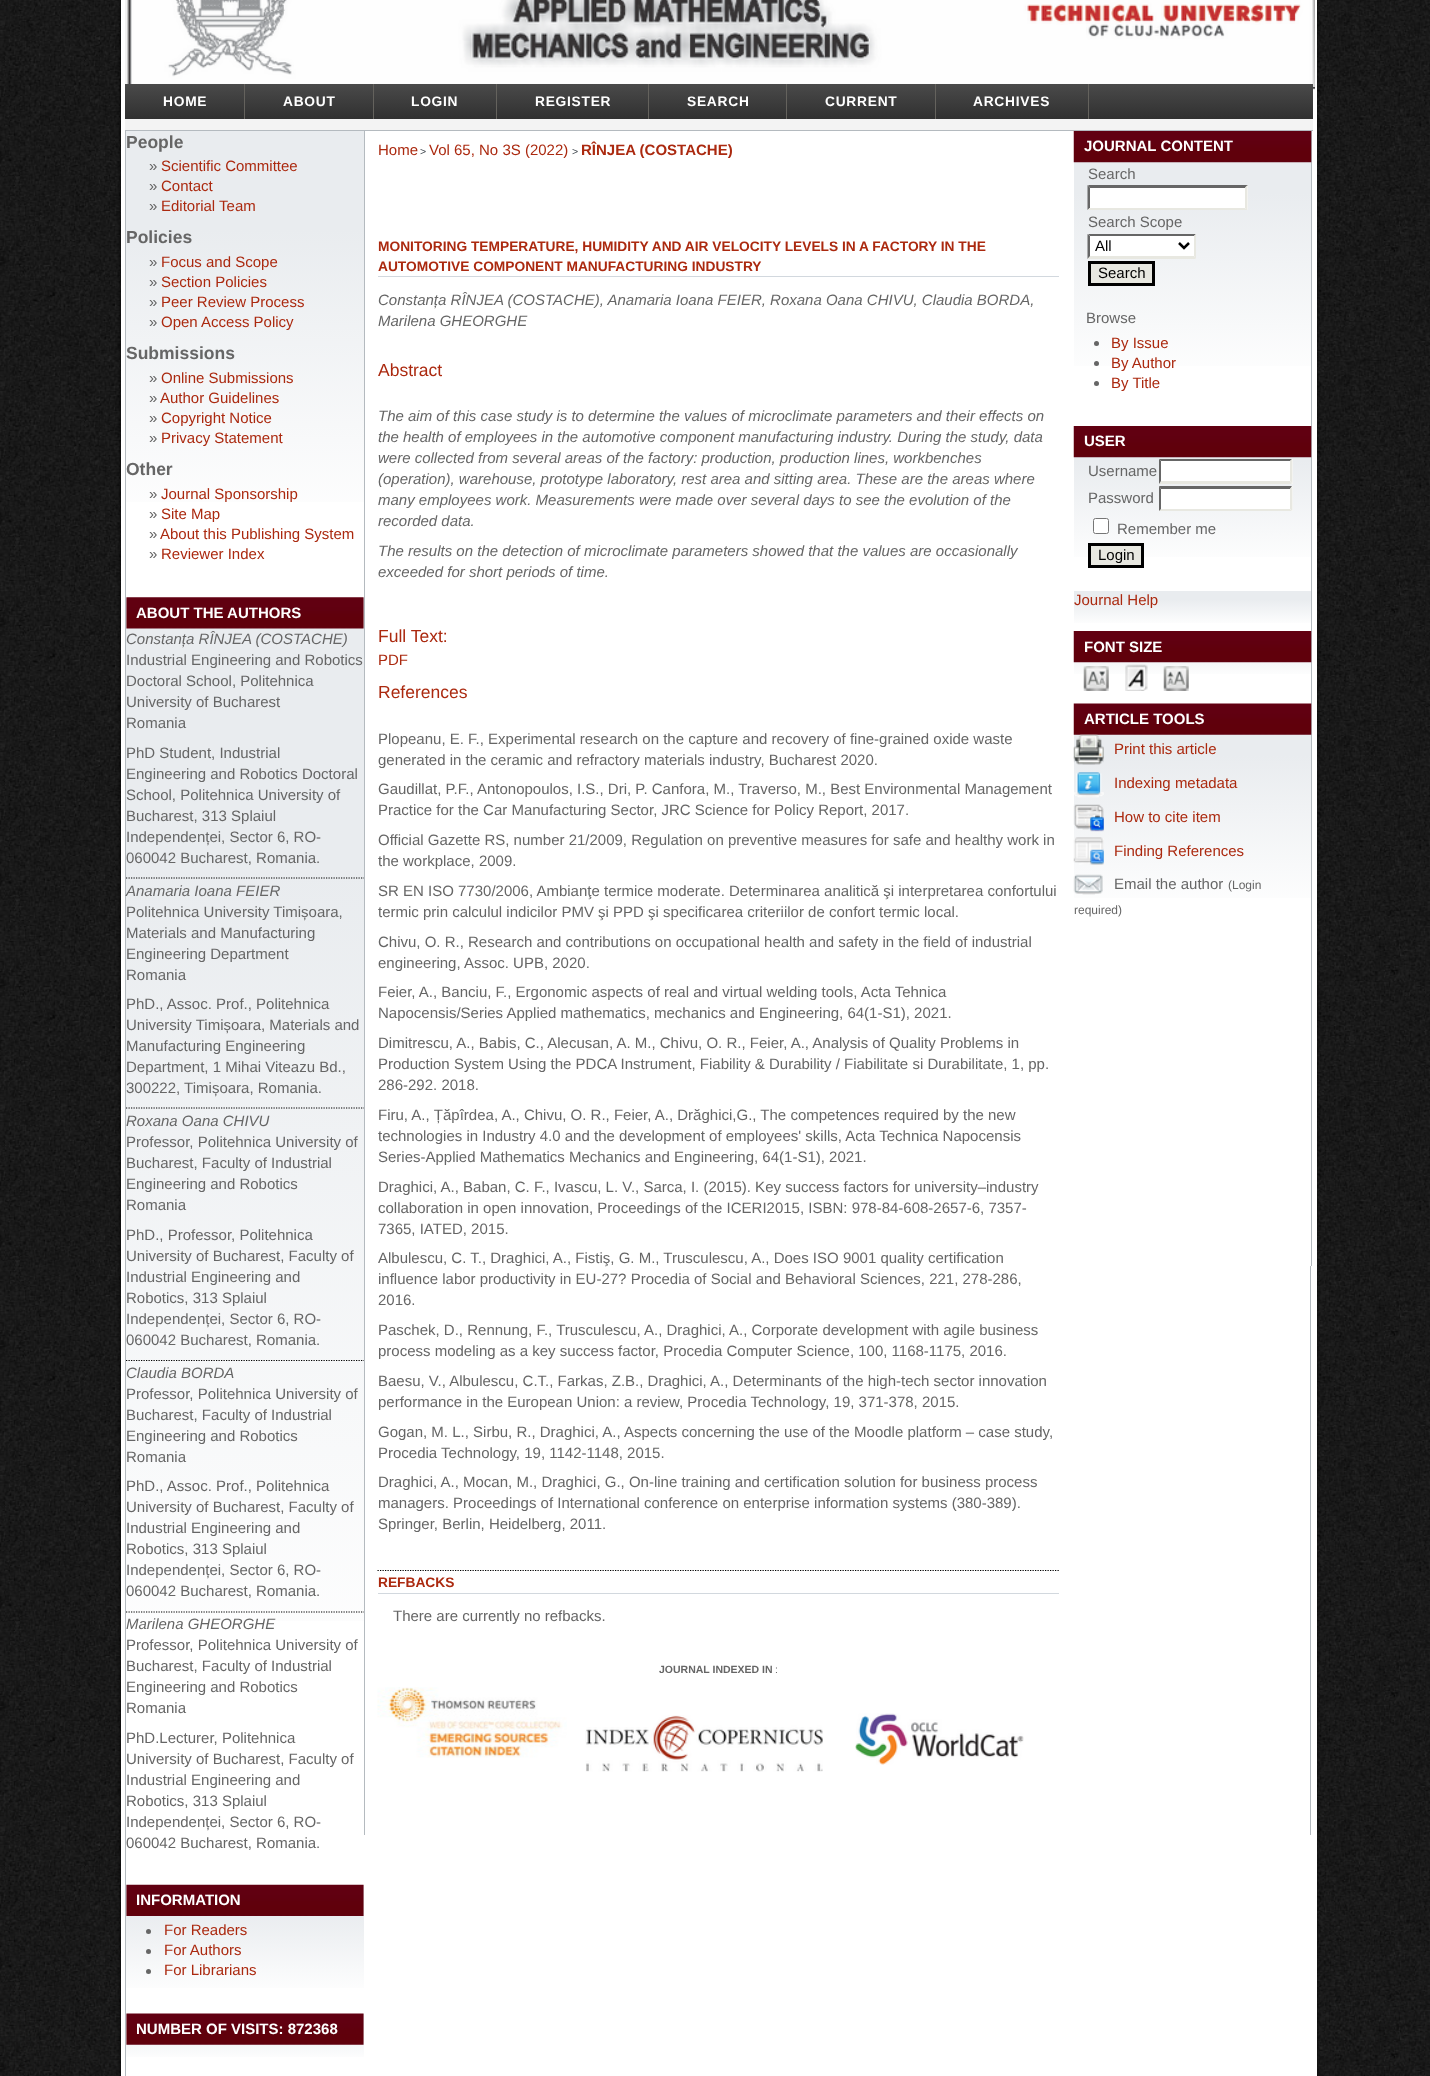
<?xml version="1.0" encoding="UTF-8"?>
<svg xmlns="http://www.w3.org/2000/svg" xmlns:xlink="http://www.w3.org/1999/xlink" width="1430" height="2076">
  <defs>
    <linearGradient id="g1" gradientUnits="userSpaceOnUse" x1="719" y1="84" x2="719" y2="119"><stop offset="0" stop-color="#4a4a4a" /><stop offset="1" stop-color="#303030" /></linearGradient>
    <linearGradient id="g2" gradientUnits="userSpaceOnUse" x1="126" y1="598" x2="126" y2="131"><stop offset="0.13" stop-color="#ffffff" /><stop offset="0.79" stop-color="#e9ecef" /></linearGradient>
    <linearGradient id="g3" gradientUnits="userSpaceOnUse" x1="126" y1="1885" x2="126" y2="598"><stop offset="0.13" stop-color="#ffffff" /><stop offset="0.79" stop-color="#e9ecef" /></linearGradient>
    <linearGradient id="g4" gradientUnits="userSpaceOnUse" x1="126" y1="2014" x2="126" y2="1885"><stop offset="0.13" stop-color="#ffffff" /><stop offset="0.79" stop-color="#e9ecef" /></linearGradient>
    <linearGradient id="g5" gradientUnits="userSpaceOnUse" x1="126" y1="2068" x2="126" y2="2014"><stop offset="0.13" stop-color="#ffffff" /><stop offset="0.79" stop-color="#e9ecef" /></linearGradient>
    <linearGradient id="g6" gradientUnits="userSpaceOnUse" x1="1074" y1="426" x2="1074" y2="131"><stop offset="0.13" stop-color="#ffffff" /><stop offset="0.79" stop-color="#e9ecef" /></linearGradient>
    <linearGradient id="g7" gradientUnits="userSpaceOnUse" x1="1074" y1="591" x2="1074" y2="426"><stop offset="0.13" stop-color="#ffffff" /><stop offset="0.79" stop-color="#e9ecef" /></linearGradient>
    <linearGradient id="g8" gradientUnits="userSpaceOnUse" x1="1074" y1="631" x2="1074" y2="591"><stop offset="0.13" stop-color="#ffffff" /><stop offset="0.79" stop-color="#e9ecef" /></linearGradient>
    <linearGradient id="g9" gradientUnits="userSpaceOnUse" x1="1074" y1="685" x2="1074" y2="631"><stop offset="0.13" stop-color="#ffffff" /><stop offset="0.79" stop-color="#e9ecef" /></linearGradient>
    <linearGradient id="g10" gradientUnits="userSpaceOnUse" x1="1074" y1="948" x2="1074" y2="704"><stop offset="0.13" stop-color="#ffffff" /><stop offset="0.79" stop-color="#e9ecef" /></linearGradient>
  </defs>
  <rect width="100%" height="100%" fill="#ffffff" />
  <image x="0" y="0" width="1430" height="2076" xlink:href="image1.png" />
  <rect x="121" y="-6" width="1195" height="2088" fill="#000000" filter="blur(2px)" />
  <rect x="121" width="1196" height="2076" fill="#ffffff" />
  <rect x="125" width="1188" height="130" fill="#f3f3f3" />
  <rect x="125" y="130" width="1188" height="1" fill="#b4babf" />
  <image x="127" y="0" width="1188" height="90" xlink:href="image2.png" />
  <rect x="1310" y="1266" width="1" height="569" fill="#b4babf" />
  <rect x="364" y="131" width="1" height="1704" fill="#b4babf" />
  <rect x="125" y="84" width="1188" height="35" fill="url(#g1)" />
  <rect x="244" y="84" width="1" height="35" fill="#64625d" />
  <rect x="373" y="84" width="1" height="35" fill="#64625d" />
  <rect x="496" y="84" width="1" height="35" fill="#64625d" />
  <rect x="648" y="84" width="1" height="35" fill="#64625d" />
  <rect x="786" y="84" width="1" height="35" fill="#64625d" />
  <rect x="935" y="84" width="1" height="35" fill="#64625d" />
  <rect x="1088" y="84" width="1" height="35" fill="#64625d" />
  <rect x="378" y="276" width="681" height="1" fill="#d2d8de" />
  <path d="M 377.5 1570.5 h 681.5" fill="none" stroke="#000000" stroke-width="1.2" stroke-dasharray="1.25 1.25" />
  <rect x="378" y="1593" width="681" height="1" fill="#d2d8de" />
  <image x="377" y="1687" width="190" height="71" xlink:href="image3.png" />
  <image x="585" y="1715" width="238" height="57" xlink:href="image4.png" />
  <image x="855" y="1713" width="169" height="52" xlink:href="image5.png" />
  <rect x="125" y="131" width="1" height="1945" fill="#b4babf" />
  <rect x="126" y="131" width="238" height="371" fill="url(#g2)" />
  <rect x="126" y="598" width="238" height="1023" fill="url(#g3)" />
  <image x="126" y="597" width="238" height="32" xlink:href="image6.png" />
  <path d="M 126 878 h 238" fill="none" stroke="#000000" stroke-width="1.2" stroke-dasharray="1.25 1.25" />
  <path d="M 126 1108 h 238" fill="none" stroke="#000000" stroke-width="1.2" stroke-dasharray="1.25 1.25" />
  <path d="M 126 1360.5 h 238" fill="none" stroke="#000000" stroke-width="1.2" stroke-dasharray="1.25 1.25" />
  <path d="M 126 1612 h 238" fill="none" stroke="#000000" stroke-width="1.2" stroke-dasharray="1.25 1.25" />
  <rect x="126" y="1885" width="238" height="103" fill="url(#g4)" />
  <image x="126" y="1884" width="238" height="32" xlink:href="image7.png" />
  <circle cx="148.5" cy="1931.5" r="2.5" fill="#666666" />
  <circle cx="148.5" cy="1951.5" r="2.5" fill="#666666" />
  <circle cx="148.5" cy="1971.5" r="2.5" fill="#666666" />
  <rect x="126" y="2014" width="238" height="43" fill="url(#g5)" />
  <image x="126" y="2013" width="238" height="32" xlink:href="image8.png" />
  <rect x="1311" y="131" width="1" height="1135" fill="#b4babf" />
  <rect x="1074" y="162" width="237" height="204" fill="url(#g6)" />
  <image x="1073" y="131" width="239" height="32" xlink:href="image9.png" />
  <rect x="1088" y="185" width="160" height="25" fill="#ffffff" />
  <path d="M 1088 185 h 160 l -3 3 h -155 z" fill="#666666" />
  <path d="M 1247.5 185 v 25 l -2.5 -2.5 v -20 z" fill="#e8e8e1" />
  <path d="M 1248 210 h -160 l 2 -2 h 155 z" fill="#e8e8e1" />
  <path d="M 1087.5 210 v -25 l 2.5 2.5 v 20 z" fill="#666666" />
  <rect x="1088" y="234" width="108" height="25" fill="#ffffff" />
  <path d="M 1088 234 h 108 l -2 2 h -104 z" fill="#666666" />
  <path d="M 1196 234 v 25 l -2 -3 v -20 z" fill="#e8e8e1" />
  <path d="M 1196 259 h -108 l 2 -3 h 104 z" fill="#e8e8e1" />
  <path d="M 1087.5 259 v -25 l 2.5 2 v 20 z" fill="#666666" />
  <path d="M 1179 243 l 5 5 l 5 -5" fill="none" stroke="#000000" stroke-width="2.5" />
  <rect x="1089.5" y="262.5" width="64" height="22" fill="#e8e8e1" stroke="#000000" stroke-width="3" />
  <circle cx="1096.5" cy="343.5" r="2.5" fill="#666666" />
  <circle cx="1096.5" cy="363.5" r="2.5" fill="#666666" />
  <circle cx="1096.5" cy="383.5" r="2.5" fill="#666666" />
  <rect x="1074" y="457" width="237" height="100" fill="url(#g7)" />
  <image x="1073" y="426" width="239" height="32" xlink:href="image9.png" />
  <rect x="1159" y="459" width="134" height="25" fill="#ffffff" />
  <path d="M 1159 459 h 133 l -2 2 h -129 z" fill="#666666" />
  <path d="M 1292.5 459 v 25 l -2.5 -3 v -20 z" fill="#e8e8e1" />
  <path d="M 1292 484 h -133 l 2 -3 h 129 z" fill="#e8e8e1" />
  <path d="M 1159 484 v -25 l 2 2 v 20 z" fill="#666666" />
  <rect x="1159" y="486" width="134" height="25" fill="#ffffff" />
  <path d="M 1159 486 h 133 l -2 3 h -129 z" fill="#666666" />
  <path d="M 1292.5 486 v 25 l -2.5 -2 v -20 z" fill="#e8e8e1" />
  <path d="M 1292 511 h -133 l 2 -2 h 129 z" fill="#e8e8e1" />
  <path d="M 1159 511 v -25 l 2 3 v 20 z" fill="#666666" />
  <rect x="1093.5" y="518.5" width="15" height="15" rx="2" fill="#ffffff" stroke="#767676" />
  <rect x="1089.5" y="544.5" width="53" height="22" fill="#e8e8e1" stroke="#000000" stroke-width="3" />
  <rect x="1074" y="591" width="237" height="32" fill="url(#g8)" />
  <rect x="1074" y="662" width="237" height="12" fill="url(#g9)" />
  <image x="1073" y="631" width="239" height="32" xlink:href="image10.png" />
  <image x="1083" y="666" width="26" height="25" xlink:href="image11.png" />
  <image x="1125" y="664" width="23" height="27" xlink:href="image12.png" />
  <image x="1163" y="666" width="26" height="25" xlink:href="image13.png" />
  <rect x="1074" y="734" width="237" height="164" fill="url(#g10)" />
  <image x="1073" y="703" width="239" height="32" xlink:href="image14.png" />
  <image x="1073" y="734" width="31" height="31" xlink:href="image15.png" />
  <image x="1074" y="772" width="30" height="26" xlink:href="image16.png" />
  <image x="1073" y="804" width="31" height="28" xlink:href="image17.png" />
  <image x="1073" y="837" width="31" height="28" xlink:href="image18.png" />
  <image x="1073" y="874" width="30" height="21" xlink:href="image19.png" />
  <text x="163" y="106" style="font-family: Liberation Sans; font-size: 13.75px; font-weight: bold; letter-spacing: 0.75px; fill: #ffffff">HOME</text>
  <text x="283" y="106" style="font-family: Liberation Sans; font-size: 13.75px; font-weight: bold; letter-spacing: 0.75px; fill: #ffffff">ABOUT</text>
  <text x="411" y="106" style="font-family: Liberation Sans; font-size: 13.75px; font-weight: bold; letter-spacing: 0.75px; fill: #ffffff">LOGIN</text>
  <text x="535" y="106" style="font-family: Liberation Sans; font-size: 13.75px; font-weight: bold; letter-spacing: 0.75px; fill: #ffffff">REGISTER</text>
  <text x="687" y="106" style="font-family: Liberation Sans; font-size: 13.75px; font-weight: bold; letter-spacing: 0.75px; fill: #ffffff">SEARCH</text>
  <text x="825" y="106" style="font-family: Liberation Sans; font-size: 13.75px; font-weight: bold; letter-spacing: 0.75px; fill: #ffffff">CURRENT</text>
  <text x="973" y="106" style="font-family: Liberation Sans; font-size: 13.75px; font-weight: bold; letter-spacing: 0.75px; fill: #ffffff">ARCHIVES</text>
  <text x="378" y="155" style="font-family: Liberation Sans; font-size: 15px; fill: #ab290f">Home</text>
  <text x="420" y="155" style="font-family: Liberation Sans; font-size: 10.5px; fill: #394048">&gt;</text>
  <text x="429" y="155" style="font-family: Liberation Sans; font-size: 15px; fill: #ab290f">Vol 65, No 3S (2022)</text>
  <text x="572" y="155" style="font-family: Liberation Sans; font-size: 10.5px; fill: #394048">&gt;</text>
  <text x="581" y="155" style="font-family: Liberation Sans; font-size: 15px; font-weight: bold; fill: #ab290f">RÎNJEA (COSTACHE)</text>
  <text x="378" y="251" style="font-family: Liberation Sans; font-size: 13.75px; font-weight: bold; fill: #ab290f">MONITORING TEMPERATURE, HUMIDITY AND AIR VELOCITY LEVELS IN A FACTORY IN THE</text>
  <text x="378" y="271" style="font-family: Liberation Sans; font-size: 13.75px; font-weight: bold; fill: #ab290f">AUTOMOTIVE COMPONENT MANUFACTURING INDUSTRY</text>
  <text x="378" y="305" style="font-family: Liberation Sans; font-size: 15px; font-style: italic; fill: #666666">Constanța RÎNJEA (COSTACHE), Anamaria Ioana FEIER, Roxana Oana CHIVU, Claudia BORDA,</text>
  <text x="378" y="326" style="font-family: Liberation Sans; font-size: 15px; font-style: italic; fill: #666666">Marilena GHEORGHE</text>
  <text x="378" y="376" style="font-family: Liberation Sans; font-size: 17.5px; fill: #ab290f">Abstract</text>
  <text x="378" y="421" style="font-family: Liberation Sans; font-size: 15px; font-style: italic; fill: #666666">The aim of this case study is to determine the values of microclimate parameters and their effects on</text>
  <text x="378" y="442" style="font-family: Liberation Sans; font-size: 15px; font-style: italic; fill: #666666">the health of employees in the automotive component manufacturing industry. During the study, data</text>
  <text x="378" y="463" style="font-family: Liberation Sans; font-size: 15px; font-style: italic; fill: #666666">were collected from several areas of the factory: production, production lines, workbenches</text>
  <text x="378" y="484" style="font-family: Liberation Sans; font-size: 15px; font-style: italic; fill: #666666">(operation), warehouse, prototype laboratory, rest area and sitting area. These are the areas where</text>
  <text x="378" y="505" style="font-family: Liberation Sans; font-size: 15px; font-style: italic; fill: #666666">many employees work. Measurements were made over several days to see the evolution of the</text>
  <text x="378" y="526" style="font-family: Liberation Sans; font-size: 15px; font-style: italic; fill: #666666">recorded data.</text>
  <text x="378" y="556" style="font-family: Liberation Sans; font-size: 15px; font-style: italic; fill: #666666">The results on the detection of microclimate parameters showed that the values are occasionally</text>
  <text x="378" y="577" style="font-family: Liberation Sans; font-size: 15px; font-style: italic; fill: #666666">exceeded for short periods of time.</text>
  <text x="378" y="642" style="font-family: Liberation Sans; font-size: 17.5px; fill: #ab290f">Full Text:</text>
  <text x="378" y="665" style="font-family: Liberation Sans; font-size: 15px; fill: #ab290f">PDF</text>
  <text x="378" y="698" style="font-family: Liberation Sans; font-size: 17.5px; fill: #ab290f">References</text>
  <text x="378" y="744" style="font-family: Liberation Sans; font-size: 15px; fill: #666666">Plopeanu, E. F., Experimental research on the capture and recovery of fine-grained oxide waste</text>
  <text x="378" y="765" style="font-family: Liberation Sans; font-size: 15px; fill: #666666">generated in the ceramic and refractory materials industry, Bucharest 2020.</text>
  <text x="378" y="794" style="font-family: Liberation Sans; font-size: 15px; fill: #666666">Gaudillat, P.F., Antonopoulos, I.S., Dri, P. Canfora, M., Traverso, M., Best Environmental Management</text>
  <text x="378" y="815" style="font-family: Liberation Sans; font-size: 15px; fill: #666666">Practice for the Car Manufacturing Sector, JRC Science for Policy Report, 2017.</text>
  <text x="378" y="845" style="font-family: Liberation Sans; font-size: 15px; fill: #666666">Official Gazette RS, number 21/2009, Regulation on preventive measures for safe and healthy work in</text>
  <text x="378" y="866" style="font-family: Liberation Sans; font-size: 15px; fill: #666666">the workplace, 2009.</text>
  <text x="378" y="896" style="font-family: Liberation Sans; font-size: 15px; fill: #666666">SR EN ISO 7730/2006, Ambianţe termice moderate. Determinarea analitică şi interpretarea confortului</text>
  <text x="378" y="917" style="font-family: Liberation Sans; font-size: 15px; fill: #666666">termic prin calculul indicilor PMV şi PPD şi specificarea criteriilor de confort termic local.</text>
  <text x="378" y="947" style="font-family: Liberation Sans; font-size: 15px; fill: #666666">Chivu, O. R., Research and contributions on occupational health and safety in the field of industrial</text>
  <text x="378" y="968" style="font-family: Liberation Sans; font-size: 15px; fill: #666666">engineering, Assoc. UPB, 2020.</text>
  <text x="378" y="997" style="font-family: Liberation Sans; font-size: 15px; fill: #666666">Feier, A., Banciu, F., Ergonomic aspects of real and virtual welding tools, Acta Tehnica</text>
  <text x="378" y="1018" style="font-family: Liberation Sans; font-size: 15px; fill: #666666">Napocensis/Series Applied mathematics, mechanics and Engineering, 64(1-S1), 2021.</text>
  <text x="378" y="1048" style="font-family: Liberation Sans; font-size: 15px; fill: #666666">Dimitrescu, A., Babis, C., Alecusan, A. M., Chivu, O. R., Feier, A., Analysis of Quality Problems in</text>
  <text x="378" y="1069" style="font-family: Liberation Sans; font-size: 15px; fill: #666666">Production System Using the PDCA Instrument, Fiability &amp; Durability / Fiabilitate si Durabilitate, 1, pp.</text>
  <text x="378" y="1090" style="font-family: Liberation Sans; font-size: 15px; fill: #666666">286-292. 2018.</text>
  <text x="378" y="1120" style="font-family: Liberation Sans; font-size: 15px; fill: #666666">Firu, A., Țăpîrdea, A., Chivu, O. R., Feier, A., Drăghici,G., The competences required by the new</text>
  <text x="378" y="1141" style="font-family: Liberation Sans; font-size: 15px; fill: #666666">technologies in Industry 4.0 and the development of employees' skills, Acta Technica Napocensis</text>
  <text x="378" y="1162" style="font-family: Liberation Sans; font-size: 15px; fill: #666666">Series-Applied Mathematics Mechanics and Engineering, 64(1-S1), 2021.</text>
  <text x="378" y="1192" style="font-family: Liberation Sans; font-size: 15px; fill: #666666">Draghici, A., Baban, C. F., Ivascu, L. V., Sarca, I. (2015). Key success factors for university–industry</text>
  <text x="378" y="1213" style="font-family: Liberation Sans; font-size: 15px; fill: #666666">collaboration in open innovation, Proceedings of the ICERI2015, ISBN: 978-84-608-2657-6, 7357-</text>
  <text x="378" y="1234" style="font-family: Liberation Sans; font-size: 15px; fill: #666666">7365, IATED, 2015.</text>
  <text x="378" y="1263" style="font-family: Liberation Sans; font-size: 15px; fill: #666666">Albulescu, C. T., Draghici, A., Fistiş, G. M., Trusculescu, A., Does ISO 9001 quality certification</text>
  <text x="378" y="1284" style="font-family: Liberation Sans; font-size: 15px; fill: #666666">influence labor productivity in EU-27? Procedia of Social and Behavioral Sciences, 221, 278-286,</text>
  <text x="378" y="1305" style="font-family: Liberation Sans; font-size: 15px; fill: #666666">2016.</text>
  <text x="378" y="1335" style="font-family: Liberation Sans; font-size: 15px; fill: #666666">Paschek, D., Rennung, F., Trusculescu, A., Draghici, A., Corporate development with agile business</text>
  <text x="378" y="1356" style="font-family: Liberation Sans; font-size: 15px; fill: #666666">process modeling as a key success factor, Procedia Computer Science, 100, 1168-1175, 2016.</text>
  <text x="378" y="1386" style="font-family: Liberation Sans; font-size: 15px; fill: #666666">Baesu, V., Albulescu, C.T., Farkas, Z.B., Draghici, A., Determinants of the high-tech sector innovation</text>
  <text x="378" y="1407" style="font-family: Liberation Sans; font-size: 15px; fill: #666666">performance in the European Union: a review, Procedia Technology, 19, 371-378, 2015.</text>
  <text x="378" y="1437" style="font-family: Liberation Sans; font-size: 15px; fill: #666666">Gogan, M. L., Sirbu, R., Draghici, A., Aspects concerning the use of the Moodle platform – case study,</text>
  <text x="378" y="1458" style="font-family: Liberation Sans; font-size: 15px; fill: #666666">Procedia Technology, 19, 1142-1148, 2015.</text>
  <text x="378" y="1487" style="font-family: Liberation Sans; font-size: 15px; fill: #666666">Draghici, A., Mocan, M., Draghici, G., On-line training and certification solution for business process</text>
  <text x="378" y="1508" style="font-family: Liberation Sans; font-size: 15px; fill: #666666">managers. Proceedings of International conference on enterprise information systems (380-389).</text>
  <text x="378" y="1529" style="font-family: Liberation Sans; font-size: 15px; fill: #666666">Springer, Berlin, Heidelberg, 2011.</text>
  <text x="378" y="1587" style="font-family: Liberation Sans; font-size: 13.75px; font-weight: bold; fill: #ab290f">REFBACKS</text>
  <text x="393" y="1621" style="font-family: Liberation Sans; font-size: 15px; fill: #666666">There are currently no refbacks.</text>
  <text x="659" y="1673" style="font-family: Liberation Sans; font-size: 10.5px; font-weight: bold; fill: #666666">JOURNAL INDEXED IN</text>
  <text x="775" y="1673" style="font-family: Liberation Sans; font-size: 10.5px; fill: #666666">:</text>
  <text x="126" y="148" style="font-family: Liberation Sans; font-size: 17.5px; font-weight: bold; fill: #666666">People</text>
  <text x="149" y="171" style="font-family: Liberation Sans; font-size: 15px; fill: #666666">»</text>
  <text x="161" y="171" style="font-family: Liberation Sans; font-size: 15px; fill: #ab290f">Scientific Committee</text>
  <text x="149" y="191" style="font-family: Liberation Sans; font-size: 15px; fill: #666666">»</text>
  <text x="161" y="191" style="font-family: Liberation Sans; font-size: 15px; fill: #ab290f">Contact</text>
  <text x="149" y="211" style="font-family: Liberation Sans; font-size: 15px; fill: #666666">»</text>
  <text x="161" y="211" style="font-family: Liberation Sans; font-size: 15px; fill: #ab290f">Editorial Team</text>
  <text x="126" y="243" style="font-family: Liberation Sans; font-size: 17.5px; font-weight: bold; fill: #666666">Policies</text>
  <text x="149" y="267" style="font-family: Liberation Sans; font-size: 15px; fill: #666666">»</text>
  <text x="161" y="267" style="font-family: Liberation Sans; font-size: 15px; fill: #ab290f">Focus and Scope</text>
  <text x="149" y="287" style="font-family: Liberation Sans; font-size: 15px; fill: #666666">»</text>
  <text x="161" y="287" style="font-family: Liberation Sans; font-size: 15px; fill: #ab290f">Section Policies</text>
  <text x="149" y="307" style="font-family: Liberation Sans; font-size: 15px; fill: #666666">»</text>
  <text x="161" y="307" style="font-family: Liberation Sans; font-size: 15px; fill: #ab290f">Peer Review Process</text>
  <text x="149" y="327" style="font-family: Liberation Sans; font-size: 15px; fill: #666666">»</text>
  <text x="161" y="327" style="font-family: Liberation Sans; font-size: 15px; fill: #ab290f">Open Access Policy</text>
  <text x="126" y="359" style="font-family: Liberation Sans; font-size: 17.5px; font-weight: bold; fill: #666666">Submissions</text>
  <text x="149" y="383" style="font-family: Liberation Sans; font-size: 15px; fill: #666666">»</text>
  <text x="161" y="383" style="font-family: Liberation Sans; font-size: 15px; fill: #ab290f">Online Submissions</text>
  <text x="149" y="403" style="font-family: Liberation Sans; font-size: 15px; fill: #666666">»</text>
  <text x="160" y="403" style="font-family: Liberation Sans; font-size: 15px; fill: #ab290f">Author Guidelines</text>
  <text x="149" y="423" style="font-family: Liberation Sans; font-size: 15px; fill: #666666">»</text>
  <text x="161" y="423" style="font-family: Liberation Sans; font-size: 15px; fill: #ab290f">Copyright Notice</text>
  <text x="149" y="443" style="font-family: Liberation Sans; font-size: 15px; fill: #666666">»</text>
  <text x="161" y="443" style="font-family: Liberation Sans; font-size: 15px; fill: #ab290f">Privacy Statement</text>
  <text x="126" y="475" style="font-family: Liberation Sans; font-size: 17.5px; font-weight: bold; fill: #666666">Other</text>
  <text x="149" y="499" style="font-family: Liberation Sans; font-size: 15px; fill: #666666">»</text>
  <text x="161" y="499" style="font-family: Liberation Sans; font-size: 15px; fill: #ab290f">Journal Sponsorship</text>
  <text x="149" y="519" style="font-family: Liberation Sans; font-size: 15px; fill: #666666">»</text>
  <text x="161" y="519" style="font-family: Liberation Sans; font-size: 15px; fill: #ab290f">Site Map</text>
  <text x="149" y="539" style="font-family: Liberation Sans; font-size: 15px; fill: #666666">»</text>
  <text x="160" y="539" style="font-family: Liberation Sans; font-size: 15px; fill: #ab290f">About this Publishing System</text>
  <text x="149" y="559" style="font-family: Liberation Sans; font-size: 15px; fill: #666666">»</text>
  <text x="161" y="559" style="font-family: Liberation Sans; font-size: 15px; fill: #ab290f">Reviewer Index</text>
  <text x="136" y="618" style="font-family: Liberation Sans; font-size: 15px; font-weight: bold; fill: #ffffff">ABOUT THE AUTHORS</text>
  <text x="126" y="644" style="font-family: Liberation Sans; font-size: 15px; font-style: italic; fill: #666666">Constanța RÎNJEA (COSTACHE)</text>
  <text x="126" y="665" style="font-family: Liberation Sans; font-size: 15px; fill: #666666">Industrial Engineering and Robotics</text>
  <text x="126" y="686" style="font-family: Liberation Sans; font-size: 15px; fill: #666666">Doctoral School, Politehnica</text>
  <text x="126" y="707" style="font-family: Liberation Sans; font-size: 15px; fill: #666666">University of Bucharest</text>
  <text x="126" y="728" style="font-family: Liberation Sans; font-size: 15px; fill: #666666">Romania</text>
  <text x="126" y="758" style="font-family: Liberation Sans; font-size: 15px; fill: #666666">PhD Student, Industrial</text>
  <text x="126" y="779" style="font-family: Liberation Sans; font-size: 15px; fill: #666666">Engineering and Robotics Doctoral</text>
  <text x="126" y="800" style="font-family: Liberation Sans; font-size: 15px; fill: #666666">School, Politehnica University of</text>
  <text x="126" y="821" style="font-family: Liberation Sans; font-size: 15px; fill: #666666">Bucharest, 313 Splaiul</text>
  <text x="126" y="842" style="font-family: Liberation Sans; font-size: 15px; fill: #666666">Independenței, Sector 6, RO-</text>
  <text x="126" y="863" style="font-family: Liberation Sans; font-size: 15px; fill: #666666">060042 Bucharest, Romania.</text>
  <text x="126" y="896" style="font-family: Liberation Sans; font-size: 15px; font-style: italic; fill: #666666">Anamaria Ioana FEIER</text>
  <text x="126" y="917" style="font-family: Liberation Sans; font-size: 15px; fill: #666666">Politehnica University Timișoara,</text>
  <text x="126" y="938" style="font-family: Liberation Sans; font-size: 15px; fill: #666666">Materials and Manufacturing</text>
  <text x="126" y="959" style="font-family: Liberation Sans; font-size: 15px; fill: #666666">Engineering Department</text>
  <text x="126" y="980" style="font-family: Liberation Sans; font-size: 15px; fill: #666666">Romania</text>
  <text x="126" y="1009" style="font-family: Liberation Sans; font-size: 15px; fill: #666666">PhD., Assoc. Prof., Politehnica</text>
  <text x="126" y="1030" style="font-family: Liberation Sans; font-size: 15px; fill: #666666">University Timișoara, Materials and</text>
  <text x="126" y="1051" style="font-family: Liberation Sans; font-size: 15px; fill: #666666">Manufacturing Engineering</text>
  <text x="126" y="1072" style="font-family: Liberation Sans; font-size: 15px; fill: #666666">Department, 1 Mihai Viteazu Bd.,</text>
  <text x="126" y="1093" style="font-family: Liberation Sans; font-size: 15px; fill: #666666">300222, Timișoara, Romania.</text>
  <text x="126" y="1126" style="font-family: Liberation Sans; font-size: 15px; font-style: italic; fill: #666666">Roxana Oana CHIVU</text>
  <text x="126" y="1147" style="font-family: Liberation Sans; font-size: 15px; fill: #666666">Professor, Politehnica University of</text>
  <text x="126" y="1168" style="font-family: Liberation Sans; font-size: 15px; fill: #666666">Bucharest, Faculty of Industrial</text>
  <text x="126" y="1189" style="font-family: Liberation Sans; font-size: 15px; fill: #666666">Engineering and Robotics</text>
  <text x="126" y="1210" style="font-family: Liberation Sans; font-size: 15px; fill: #666666">Romania</text>
  <text x="126" y="1240" style="font-family: Liberation Sans; font-size: 15px; fill: #666666">PhD., Professor, Politehnica</text>
  <text x="126" y="1261" style="font-family: Liberation Sans; font-size: 15px; fill: #666666">University of Bucharest, Faculty of</text>
  <text x="126" y="1282" style="font-family: Liberation Sans; font-size: 15px; fill: #666666">Industrial Engineering and</text>
  <text x="126" y="1303" style="font-family: Liberation Sans; font-size: 15px; fill: #666666">Robotics, 313 Splaiul</text>
  <text x="126" y="1324" style="font-family: Liberation Sans; font-size: 15px; fill: #666666">Independenței, Sector 6, RO-</text>
  <text x="126" y="1345" style="font-family: Liberation Sans; font-size: 15px; fill: #666666">060042 Bucharest, Romania.</text>
  <text x="126" y="1378" style="font-family: Liberation Sans; font-size: 15px; font-style: italic; fill: #666666">Claudia BORDA</text>
  <text x="126" y="1399" style="font-family: Liberation Sans; font-size: 15px; fill: #666666">Professor, Politehnica University of</text>
  <text x="126" y="1420" style="font-family: Liberation Sans; font-size: 15px; fill: #666666">Bucharest, Faculty of Industrial</text>
  <text x="126" y="1441" style="font-family: Liberation Sans; font-size: 15px; fill: #666666">Engineering and Robotics</text>
  <text x="126" y="1462" style="font-family: Liberation Sans; font-size: 15px; fill: #666666">Romania</text>
  <text x="126" y="1491" style="font-family: Liberation Sans; font-size: 15px; fill: #666666">PhD., Assoc. Prof., Politehnica</text>
  <text x="126" y="1512" style="font-family: Liberation Sans; font-size: 15px; fill: #666666">University of Bucharest, Faculty of</text>
  <text x="126" y="1533" style="font-family: Liberation Sans; font-size: 15px; fill: #666666">Industrial Engineering and</text>
  <text x="126" y="1554" style="font-family: Liberation Sans; font-size: 15px; fill: #666666">Robotics, 313 Splaiul</text>
  <text x="126" y="1575" style="font-family: Liberation Sans; font-size: 15px; fill: #666666">Independenței, Sector 6, RO-</text>
  <text x="126" y="1596" style="font-family: Liberation Sans; font-size: 15px; fill: #666666">060042 Bucharest, Romania.</text>
  <text x="126" y="1629" style="font-family: Liberation Sans; font-size: 15px; font-style: italic; fill: #666666">Marilena GHEORGHE</text>
  <text x="126" y="1650" style="font-family: Liberation Sans; font-size: 15px; fill: #666666">Professor, Politehnica University of</text>
  <text x="126" y="1671" style="font-family: Liberation Sans; font-size: 15px; fill: #666666">Bucharest, Faculty of Industrial</text>
  <text x="126" y="1692" style="font-family: Liberation Sans; font-size: 15px; fill: #666666">Engineering and Robotics</text>
  <text x="126" y="1713" style="font-family: Liberation Sans; font-size: 15px; fill: #666666">Romania</text>
  <text x="126" y="1743" style="font-family: Liberation Sans; font-size: 15px; fill: #666666">PhD.Lecturer, Politehnica</text>
  <text x="126" y="1764" style="font-family: Liberation Sans; font-size: 15px; fill: #666666">University of Bucharest, Faculty of</text>
  <text x="126" y="1785" style="font-family: Liberation Sans; font-size: 15px; fill: #666666">Industrial Engineering and</text>
  <text x="126" y="1806" style="font-family: Liberation Sans; font-size: 15px; fill: #666666">Robotics, 313 Splaiul</text>
  <text x="126" y="1827" style="font-family: Liberation Sans; font-size: 15px; fill: #666666">Independenței, Sector 6, RO-</text>
  <text x="126" y="1848" style="font-family: Liberation Sans; font-size: 15px; fill: #666666">060042 Bucharest, Romania.</text>
  <text x="136" y="1905" style="font-family: Liberation Sans; font-size: 15px; font-weight: bold; fill: #ffffff">INFORMATION</text>
  <text x="164" y="1935" style="font-family: Liberation Sans; font-size: 15px; fill: #ab290f">For Readers</text>
  <text x="164" y="1955" style="font-family: Liberation Sans; font-size: 15px; fill: #ab290f">For Authors</text>
  <text x="164" y="1975" style="font-family: Liberation Sans; font-size: 15px; fill: #ab290f">For Librarians</text>
  <text x="136" y="2034" style="font-family: Liberation Sans; font-size: 15px; font-weight: bold; fill: #ffffff">NUMBER OF VISITS: 872368</text>
  <text x="1084" y="151" style="font-family: Liberation Sans; font-size: 15px; font-weight: bold; fill: #ffffff">JOURNAL CONTENT</text>
  <text x="1088" y="179" style="font-family: Liberation Sans; font-size: 15px; fill: #666666">Search</text>
  <text x="1088" y="227" style="font-family: Liberation Sans; font-size: 15px; fill: #666666">Search Scope</text>
  <text x="1095" y="251" style="font-family: Liberation Sans; font-size: 15px; fill: #000000">All</text>
  <text x="1098" y="278" style="font-family: Liberation Sans; font-size: 15px; fill: #000000">Search</text>
  <text x="1086" y="323" style="font-family: Liberation Sans; font-size: 15px; fill: #666666">Browse</text>
  <text x="1111" y="348" style="font-family: Liberation Sans; font-size: 15px; fill: #ab290f">By Issue</text>
  <text x="1111" y="368" style="font-family: Liberation Sans; font-size: 15px; fill: #ab290f">By Author</text>
  <text x="1111" y="388" style="font-family: Liberation Sans; font-size: 15px; fill: #ab290f">By Title</text>
  <text x="1084" y="446" style="font-family: Liberation Sans; font-size: 15px; font-weight: bold; fill: #ffffff">USER</text>
  <text x="1088" y="476" style="font-family: Liberation Sans; font-size: 15px; fill: #666666">Username</text>
  <text x="1088" y="503" style="font-family: Liberation Sans; font-size: 15px; fill: #666666">Password</text>
  <text x="1117" y="534" style="font-family: Liberation Sans; font-size: 15px; fill: #666666">Remember me</text>
  <text x="1098" y="560" style="font-family: Liberation Sans; font-size: 15px; fill: #000000">Login</text>
  <text x="1074" y="605" style="font-family: Liberation Sans; font-size: 15px; fill: #ab290f">Journal Help</text>
  <text x="1084" y="652" style="font-family: Liberation Sans; font-size: 15px; font-weight: bold; fill: #ffffff">FONT SIZE</text>
  <text x="1084" y="724" style="font-family: Liberation Sans; font-size: 15px; font-weight: bold; fill: #ffffff">ARTICLE TOOLS</text>
  <text x="1114" y="754" style="font-family: Liberation Sans; font-size: 15px; fill: #ab290f">Print this article</text>
  <text x="1114" y="788" style="font-family: Liberation Sans; font-size: 15px; fill: #ab290f">Indexing metadata</text>
  <text x="1114" y="822" style="font-family: Liberation Sans; font-size: 15px; fill: #ab290f">How to cite item</text>
  <text x="1114" y="856" style="font-family: Liberation Sans; font-size: 15px; fill: #ab290f">Finding References</text>
  <text x="1114" y="889" style="font-family: Liberation Sans; font-size: 15px; fill: #666666">Email the author</text>
  <text x="1228" y="889" style="font-family: Liberation Sans; font-size: 12px; fill: #666666">(Login</text>
  <text x="1074" y="914" style="font-family: Liberation Sans; font-size: 12px; fill: #666666">required)</text>
</svg>
